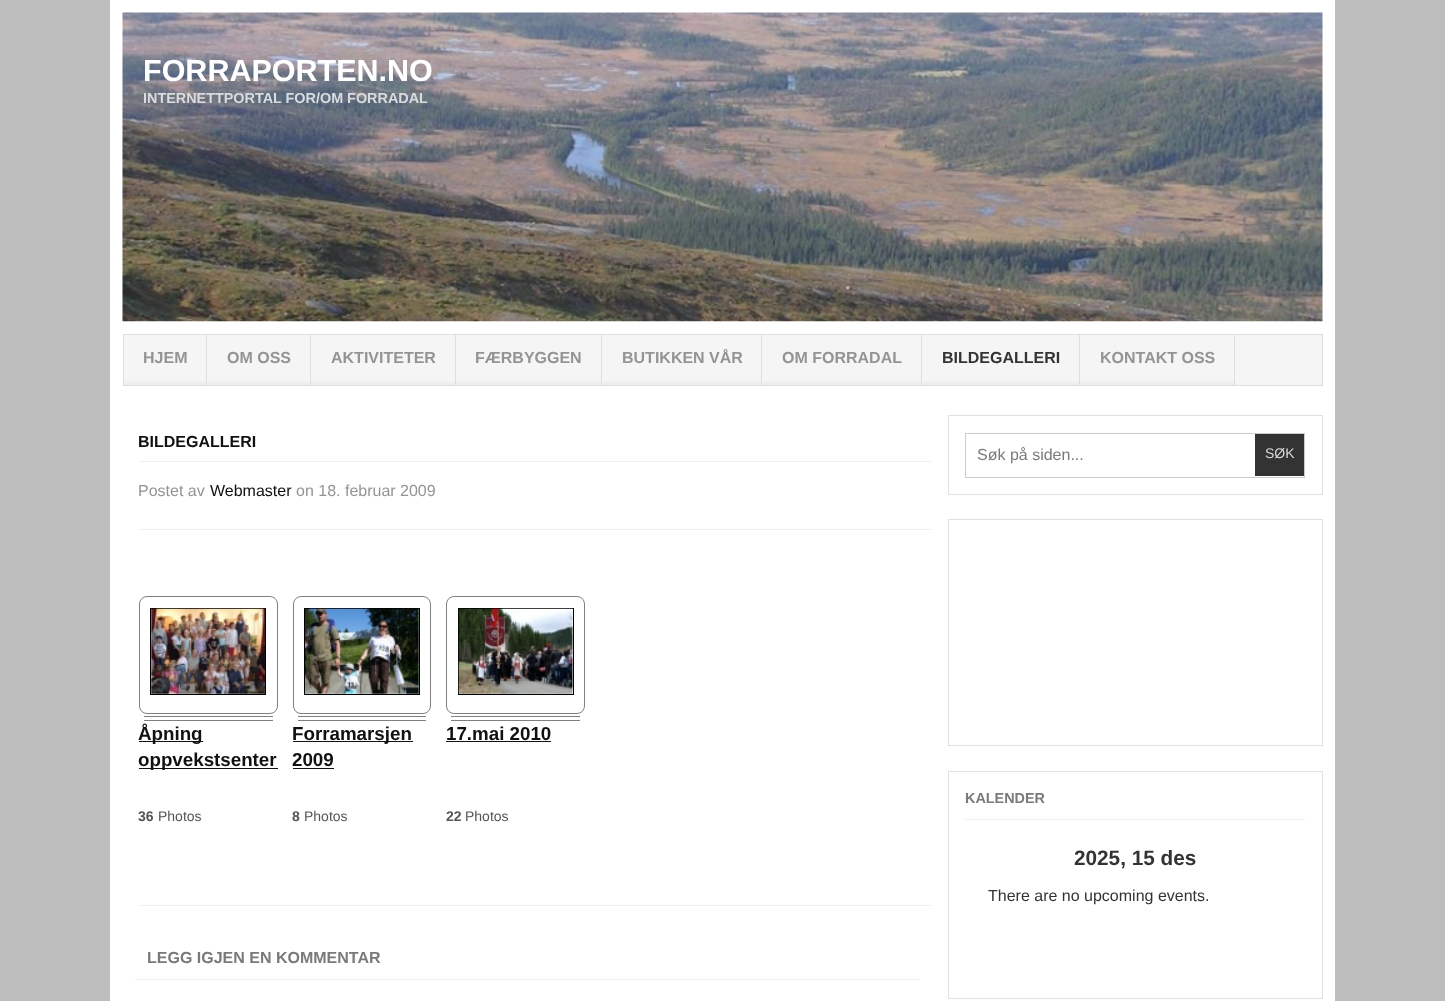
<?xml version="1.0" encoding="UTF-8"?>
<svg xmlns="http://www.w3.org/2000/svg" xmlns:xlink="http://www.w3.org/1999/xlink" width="1445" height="1001">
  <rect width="100%" height="100%" fill="#bdbdbd" />
  <rect x="110" width="1225" height="1001" fill="#ffffff" />
  <image x="122" y="12" width="1201" height="310" xlink:href="image1.png" />
  <rect x="123.5" y="334.5" width="1199" height="51" fill="#f5f5f5" stroke="#dedede" />
  <rect x="206" y="335" width="1" height="50" fill="#dedede" />
  <rect x="124" y="381" width="82" height="4" fill="#efefef" />
  <rect x="310" y="335" width="1" height="50" fill="#dedede" />
  <rect x="208" y="381" width="102" height="4" fill="#efefef" />
  <rect x="455" y="335" width="1" height="50" fill="#dedede" />
  <rect x="311" y="381" width="144" height="4" fill="#efefef" />
  <rect x="601" y="335" width="1" height="50" fill="#dedede" />
  <rect x="456" y="381" width="145" height="4" fill="#efefef" />
  <rect x="761" y="335" width="1" height="50" fill="#dedede" />
  <rect x="603" y="381" width="158" height="4" fill="#efefef" />
  <rect x="921" y="335" width="1" height="50" fill="#dedede" />
  <rect x="763" y="381" width="158" height="4" fill="#efefef" />
  <rect x="1079" y="335" width="1" height="50" fill="#dedede" />
  <rect x="923" y="381" width="156" height="4" fill="#efefef" />
  <rect x="1234" y="335" width="1" height="50" fill="#dedede" />
  <rect x="1080" y="381" width="154" height="4" fill="#efefef" />
  <rect x="139" y="529" width="792" height="1" fill="#eeeeee" />
  <rect x="139" y="461" width="792" height="1" fill="#eeeeee" />
  <rect x="139" y="905" width="792" height="1" fill="#eeeeee" />
  <rect x="139.5" y="596.5" width="138" height="117" rx="7.5" fill="none" stroke="#808080" />
  <rect x="150.5" y="608.5" width="115" height="86" fill="none" stroke="#000000" />
  <image x="151" y="608" width="114" height="86" xlink:href="image2.png" />
  <rect x="144" y="716" width="129" height="1" fill="#808080" />
  <rect x="144" y="720" width="129" height="1" fill="#808080" />
  <rect x="139" y="741" width="64" height="1" fill="#111111" />
  <rect x="139" y="768" width="139" height="1" fill="#111111" />
  <rect x="293.5" y="596.5" width="137" height="117" rx="7.5" fill="none" stroke="#808080" />
  <rect x="304.5" y="608.5" width="115" height="86" fill="none" stroke="#000000" />
  <image x="305" y="608" width="114" height="86" xlink:href="image3.png" />
  <rect x="298" y="716" width="128" height="1" fill="#808080" />
  <rect x="298" y="720" width="128" height="1" fill="#808080" />
  <rect x="293" y="741" width="120" height="1" fill="#111111" />
  <rect x="293" y="768" width="41" height="1" fill="#111111" />
  <rect x="446.5" y="596.5" width="138" height="117" rx="7.5" fill="none" stroke="#808080" />
  <rect x="458.5" y="608.5" width="115" height="86" fill="none" stroke="#000000" />
  <image x="458" y="608" width="115" height="86" xlink:href="image4.png" />
  <rect x="451" y="716" width="129" height="1" fill="#808080" />
  <rect x="451" y="720" width="129" height="1" fill="#808080" />
  <rect x="446" y="741" width="105" height="1" fill="#111111" />
  <rect x="135" y="979" width="785" height="1" fill="#eeeeee" />
  <rect x="948.5" y="415.5" width="374" height="79" fill="none" stroke="#e1e1e1" />
  <rect x="965.5" y="433.5" width="339" height="44" fill="none" stroke="#cccccc" />
  <rect x="1255" y="434" width="49" height="42" fill="#333333" />
  <rect x="948.5" y="519.5" width="374" height="226" fill="none" stroke="#e1e1e1" />
  <rect x="948.5" y="771.5" width="374" height="227" fill="none" stroke="#e1e1e1" />
  <rect x="965" y="819" width="340" height="1" fill="#eeeeee" />
  <text x="143" y="81" style="font-family: Liberation Sans; font-size: 30.5px; font-weight: bold; fill: #ffffff">FORRAPORTEN.NO</text>
  <text x="143" y="103" style="font-family: Liberation Sans; font-size: 14.4px; font-weight: bold; fill: #d9dcdf">INTERNETTPORTAL FOR/OM FORRADAL</text>
  <text x="143" y="363" style="font-family: Liberation Sans; font-size: 16px; font-weight: bold; fill: #949494">HJEM</text>
  <text x="227" y="363" style="font-family: Liberation Sans; font-size: 16px; font-weight: bold; fill: #949494">OM OSS</text>
  <text x="331" y="363" style="font-family: Liberation Sans; font-size: 16px; font-weight: bold; fill: #949494">AKTIVITETER</text>
  <text x="475" y="363" style="font-family: Liberation Sans; font-size: 16px; font-weight: bold; fill: #949494">FÆRBYGGEN</text>
  <text x="622" y="363" style="font-family: Liberation Sans; font-size: 16px; font-weight: bold; fill: #949494">BUTIKKEN VÅR</text>
  <text x="782" y="363" style="font-family: Liberation Sans; font-size: 16px; font-weight: bold; fill: #949494">OM FORRADAL</text>
  <text x="942" y="363" style="font-family: Liberation Sans; font-size: 16px; font-weight: bold; fill: #333333">BILDEGALLERI</text>
  <text x="1100" y="363" style="font-family: Liberation Sans; font-size: 16px; font-weight: bold; fill: #949494">KONTAKT OSS</text>
  <text x="138" y="447" style="font-family: Liberation Sans; font-size: 16px; font-weight: bold; fill: #111111">BILDEGALLERI</text>
  <text x="138" y="496" style="font-family: Liberation Sans; font-size: 16px; fill: #949494">Postet av</text>
  <text x="210" y="496" style="font-family: Liberation Sans; font-size: 16px; fill: #111111">Webmaster</text>
  <text x="296" y="496" style="font-family: Liberation Sans; font-size: 16px; fill: #949494">on 18. februar 2009</text>
  <text x="138" y="740" style="font-family: Liberation Sans; font-size: 18.75px; font-weight: bold; fill: #111111">Åpning</text>
  <text x="138" y="766" style="font-family: Liberation Sans; font-size: 18.75px; font-weight: bold; fill: #111111">oppvekstsenter</text>
  <text x="138" y="821" style="font-family: Liberation Sans; font-size: 14px; font-weight: bold; fill: #555555">36</text>
  <text x="158" y="821" style="font-family: Liberation Sans; font-size: 14px; fill: #555555">Photos</text>
  <text x="292" y="740" style="font-family: Liberation Sans; font-size: 18.75px; font-weight: bold; fill: #111111">Forramarsjen</text>
  <text x="292" y="766" style="font-family: Liberation Sans; font-size: 18.75px; font-weight: bold; fill: #111111">2009</text>
  <text x="292" y="821" style="font-family: Liberation Sans; font-size: 14px; font-weight: bold; fill: #555555">8</text>
  <text x="304" y="821" style="font-family: Liberation Sans; font-size: 14px; fill: #555555">Photos</text>
  <text x="446" y="740" style="font-family: Liberation Sans; font-size: 18.75px; font-weight: bold; fill: #111111">17.mai 2010</text>
  <text x="446" y="821" style="font-family: Liberation Sans; font-size: 14px; font-weight: bold; fill: #555555">22</text>
  <text x="465" y="821" style="font-family: Liberation Sans; font-size: 14px; fill: #555555">Photos</text>
  <text x="147" y="963" style="font-family: Liberation Sans; font-size: 16px; font-weight: bold; fill: #7a7a7a">LEGG IGJEN EN KOMMENTAR</text>
  <text x="977" y="460" style="font-family: Liberation Sans; font-size: 16px; fill: #7a7a7a">Søk på siden...</text>
  <text x="1265" y="458" style="font-family: Liberation Sans; font-size: 14px; fill: #d9dcdf">SØK</text>
  <text x="965" y="803" style="font-family: Liberation Sans; font-size: 14.4px; font-weight: bold; fill: #7a7a7a">KALENDER</text>
  <text x="1074" y="865" style="font-family: Liberation Sans; font-size: 20.75px; font-weight: bold; fill: #333333">2025, 15 des</text>
  <text x="988" y="901" style="font-family: Liberation Sans; font-size: 16px; fill: #333333">There are no upcoming events.</text>
</svg>
